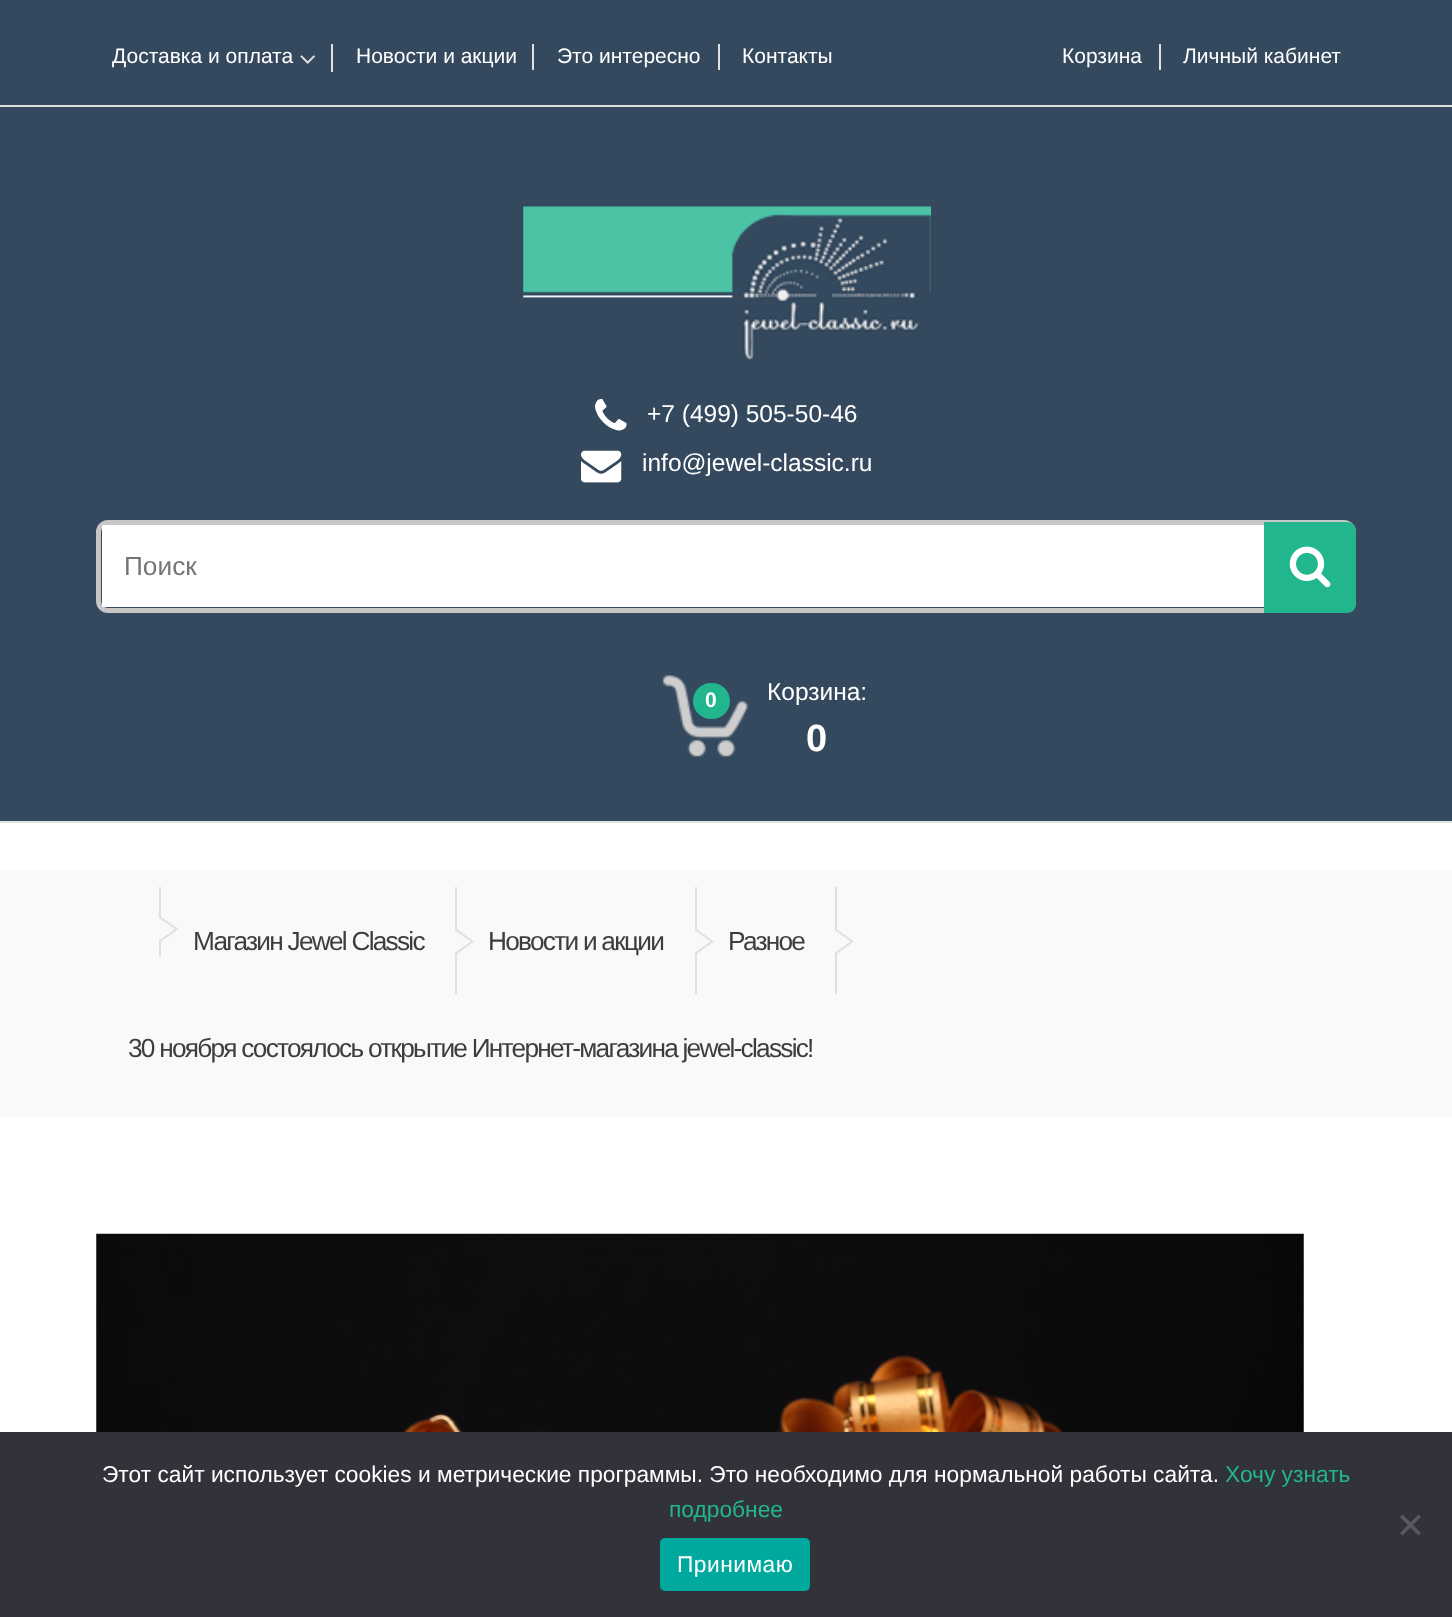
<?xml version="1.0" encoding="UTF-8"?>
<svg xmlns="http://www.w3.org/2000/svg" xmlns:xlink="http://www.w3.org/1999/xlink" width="1452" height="1617">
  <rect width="100%" height="100%" fill="#ffffff" />
  <rect width="1452" height="105" fill="#34495e" />
  <rect y="105" width="1452" height="2" fill="#e0e0e0" />
  <rect x="331" y="44" width="2" height="28" fill="#e0e0e0" />
  <image x="300" y="55" width="15" height="9" xlink:href="image1.png" />
  <rect x="532" y="44" width="2" height="26" fill="#e0e0e0" />
  <rect x="718" y="44" width="2" height="26" fill="#e0e0e0" />
  <rect x="1159" y="44" width="2" height="26" fill="#e0e0e0" />
  <rect y="107" width="1452" height="714" fill="#34495e" />
  <rect y="821" width="1452" height="2" fill="#e0e0e0" />
  <image x="523" y="206" width="408" height="155" xlink:href="image2.png" />
  <image x="595" y="398" width="32" height="33" xlink:href="image3.png" />
  <image x="581" y="450" width="41" height="33" xlink:href="image4.png" />
  <rect x="98.5" y="522.5" width="1255" height="88" rx="9.5" fill="none" stroke="#c6c6c6" stroke-width="5" />
  <rect x="102" y="525" width="1162" height="82" fill="#ffffff" />
  <path d="M 1264 522 h 83 c 5 0 9 4 9 9 v 73 c 0 5 -4 9 -9 9 h -83 z" fill="#21b68e" />
  <image x="1289" y="546" width="42" height="42" xlink:href="image5.png" />
  <image x="662" y="675" width="86" height="82" xlink:href="image6.png" />
  <rect x="693" y="683" width="37" height="36" rx="18" fill="#21b68e" />
  <rect y="870" width="1452" height="247" fill="#f9f9f9" />
  <rect x="159" y="887" width="2" height="70" fill="#e0e0e0" />
  <path d="M 161 941.5 v -24.5 l 17.5 12 z" fill="#e0e0e0" />
  <path d="M 157.5 941.5 v -24.5 l 17.5 12 z" fill="#f9f9f9" />
  <rect x="455" y="887" width="2" height="107" fill="#e0e0e0" />
  <path d="M 457 954 v -25 l 17 12.5 z" fill="#e0e0e0" />
  <path d="M 453 954 v -25 l 18 12.5 z" fill="#f9f9f9" />
  <rect x="695" y="887" width="2" height="107" fill="#e0e0e0" />
  <path d="M 696.5 954 v -25 l 17.5 12.5 z" fill="#e0e0e0" />
  <path d="M 693 954 v -25 l 17.5 12.5 z" fill="#f9f9f9" />
  <rect x="835" y="887" width="2" height="107" fill="#e0e0e0" />
  <path d="M 836.5 954 v -25 l 17.5 12.5 z" fill="#e0e0e0" />
  <path d="M 833 954 v -25 l 17.5 12.5 z" fill="#f9f9f9" />
  <image x="96" y="1233" width="1208" height="199" xlink:href="image7.png" />
  <rect y="1432" width="1452" height="185" fill="#32323a" />
  <path d="M 1418.5 1514.5 l 2.5 2.5 l -18.5 18.5 l -2.5 -2.5 z" fill="#59595d" />
  <path d="M 1400 1517 l 2.5 -2.5 l 18.5 18.5 l -2.5 2.5 z" fill="#59595d" />
  <rect x="660" y="1538" width="150" height="53" rx="5" fill="#00a99d" />
  <text x="112" y="63" style="font-family: Liberation Sans; font-size: 21px; fill: #ffffff">Доставка и оплата</text>
  <text x="356" y="63" style="font-family: Liberation Sans; font-size: 21px; fill: #ffffff">Новости и акции</text>
  <text x="557" y="63" style="font-family: Liberation Sans; font-size: 21px; fill: #ffffff">Это интересно</text>
  <text x="742" y="63" style="font-family: Liberation Sans; font-size: 21px; fill: #ffffff">Контакты</text>
  <text x="1062" y="63" style="font-family: Liberation Sans; font-size: 21px; fill: #ffffff">Корзина</text>
  <text x="1183" y="63" style="font-family: Liberation Sans; font-size: 21px; fill: #ffffff">Личный кабинет</text>
  <text x="647" y="422" style="font-family: Liberation Sans; font-size: 24.5px; fill: #ffffff">+7 (499) 505-50-46</text>
  <text x="642" y="471" style="font-family: Liberation Sans; font-size: 24.5px; fill: #ffffff">info@jewel-classic.ru</text>
  <text x="124" y="575" style="font-family: Liberation Sans; font-size: 26.25px; fill: #757575">Поиск</text>
  <text x="705" y="707" style="font-family: Liberation Sans; font-size: 21px; font-weight: bold; fill: #ffffff">0</text>
  <text x="767" y="700" style="font-family: Liberation Sans; font-size: 24.5px; fill: #ffffff">Корзина:</text>
  <text x="806" y="751" style="font-family: Liberation Sans; font-size: 38px; font-weight: bold; fill: #ffffff">0</text>
  <text x="193" y="950" style="font-family: Liberation Sans; font-size: 26.25px; letter-spacing: -1.75px; fill: #3d3d3d">Магазин Jewel Classic</text>
  <text x="488" y="950" style="font-family: Liberation Sans; font-size: 26.25px; letter-spacing: -1.75px; fill: #3d3d3d">Новости и акции</text>
  <text x="728" y="950" style="font-family: Liberation Sans; font-size: 26.25px; letter-spacing: -1.75px; fill: #3d3d3d">Разное</text>
  <text x="128" y="1057" style="font-family: Liberation Sans; font-size: 26.25px; letter-spacing: -1.75px; fill: #3d3d3d">30 ноября состоялось открытие Интернет-магазина jewel-classic!</text>
  <text x="102" y="1482" style="font-family: Liberation Sans; font-size: 22.75px; fill: #ffffff">Этот сайт использует cookies и метрические программы. Это необходимо для нормальной работы сайта.</text>
  <text x="1225" y="1482" style="font-family: Liberation Sans; font-size: 22.75px; fill: #21b68e">Хочу узнать</text>
  <text x="669" y="1517" style="font-family: Liberation Sans; font-size: 22.75px; fill: #21b68e">подробнее</text>
  <text x="677" y="1572" style="font-family: Liberation Sans; font-size: 22.75px; letter-spacing: 0.5px; fill: #ffffff">Принимаю</text>
</svg>
